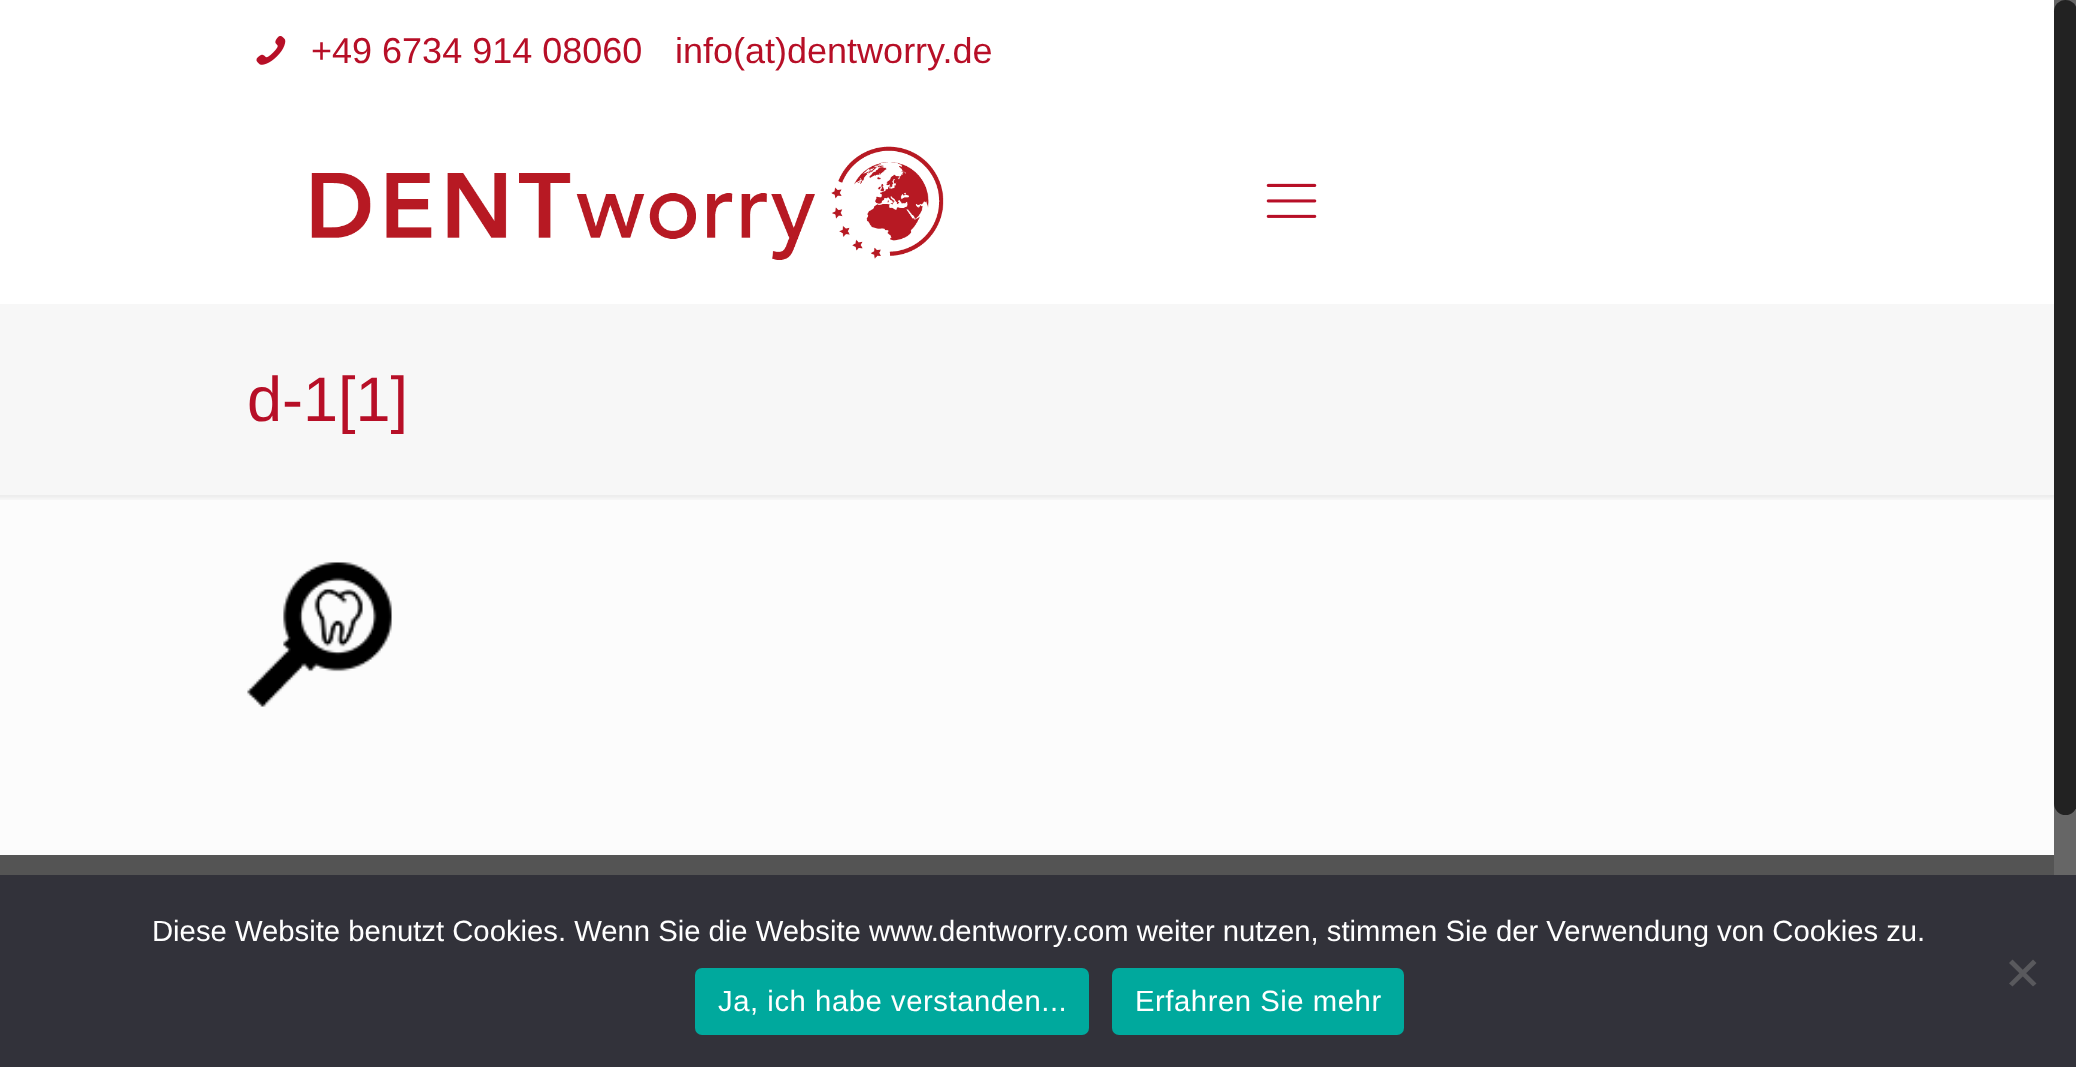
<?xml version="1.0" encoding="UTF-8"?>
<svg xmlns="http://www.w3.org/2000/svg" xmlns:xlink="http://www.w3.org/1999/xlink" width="2076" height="1067">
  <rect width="100%" height="100%" fill="#fcfcfc" />
  <rect width="2054" height="304" fill="#ffffff" />
  <image x="256" y="36" width="30" height="29" xlink:href="image1.png" />
  <image x="311" y="146" width="633" height="114" xlink:href="image2.png" />
  <image x="1266" y="183" width="51" height="35" xlink:href="image3.png" />
  <rect y="304" width="2054" height="191" fill="#f7f7f7" />
  <image x="0" y="495" width="2054" height="5" xlink:href="image4.png" />
  <image x="247" y="562" width="145" height="145" xlink:href="image5.png" />
  <rect y="855" width="2054" height="20" fill="#545454" />
  <rect x="2054" width="22" height="875" fill="#666666" />
  <rect x="2054" width="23" height="815" rx="11.5" fill="#222222" />
  <rect y="875" width="2076" height="192" fill="#32323a" />
  <path d="M 2033 959.5 l 3.5 3.5 l -24 23.5 l -3.5 -3 z" fill="#59595d" />
  <path d="M 2009 963 l 3.5 -3.5 l 24 24 l -3.5 3 z" fill="#59595d" />
  <rect x="695" y="968" width="394" height="67" rx="7" fill="#00a99d" />
  <rect x="1112" y="968" width="292" height="67" rx="7" fill="#00a99d" />
  <text x="311" y="63" style="font-family: Liberation Sans; font-size: 36px; fill: #b70f27">+49 6734 914 08060</text>
  <text x="675" y="63" style="font-family: Liberation Sans; font-size: 36px; fill: #b70f27">info(at)dentworry.de</text>
  <text x="247" y="421" style="font-family: Liberation Sans; font-size: 63px; fill: #b70f27">d-1[1]</text>
  <text x="152" y="941" style="font-family: Liberation Sans; font-size: 29.25px; fill: #ffffff">Diese Website benutzt Cookies. Wenn Sie die Website www.dentworry.com weiter nutzen, stimmen Sie der Verwendung von Cookies zu.</text>
  <text x="718" y="1011" style="font-family: Liberation Sans; font-size: 29.25px; letter-spacing: 0.55px; fill: #ffffff">Ja, ich habe verstanden...</text>
  <text x="1135" y="1011" style="font-family: Liberation Sans; font-size: 29.25px; letter-spacing: 0.55px; fill: #ffffff">Erfahren Sie mehr</text>
</svg>
